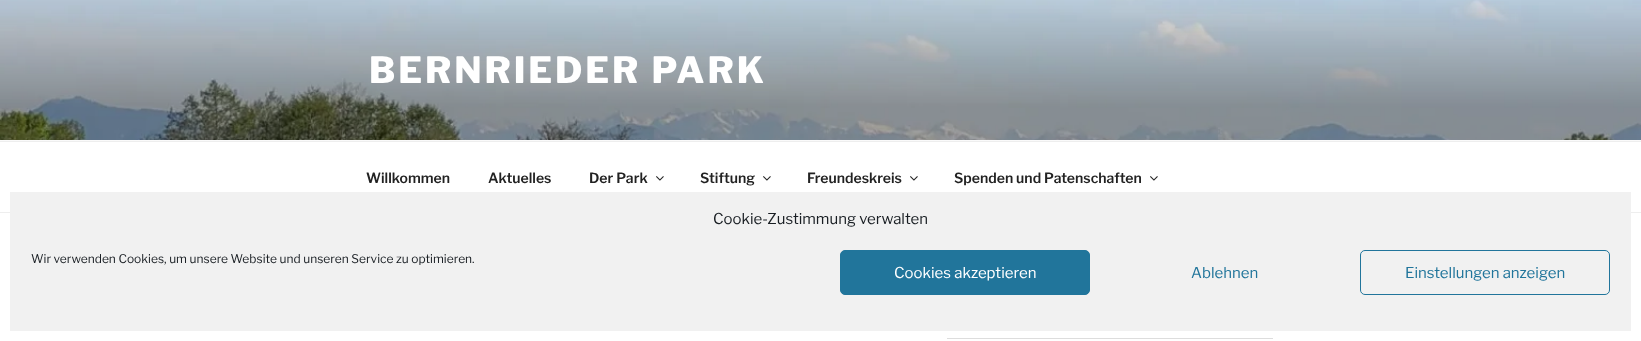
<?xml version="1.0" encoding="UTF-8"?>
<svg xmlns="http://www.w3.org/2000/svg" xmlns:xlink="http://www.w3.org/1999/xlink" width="1641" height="341">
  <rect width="100%" height="100%" fill="#ffffff" />
  <rect y="140" width="1641" height="1" fill="#fafafa" />
  <image x="0" y="0" width="1641" height="140" xlink:href="image1.png" />
  <rect y="141" width="1641" height="1" fill="#eeeeee" />
  <rect y="212" width="1641" height="1" fill="#eeeeee" />
  <image x="656" y="176" width="8" height="5" xlink:href="image2.png" />
  <image x="763" y="176" width="8" height="5" xlink:href="image2.png" />
  <image x="910" y="176" width="8" height="5" xlink:href="image2.png" />
  <image x="1150" y="176" width="8" height="5" xlink:href="image2.png" />
  <rect x="947" y="338" width="326" height="1" fill="#dddddd" />
  <rect x="10" y="192" width="1621" height="139" fill="#f1f1f1" />
  <rect x="840.5" y="250.5" width="249" height="44" rx="4.5" fill="#21759b" stroke="#21759b" />
  <rect x="1360.5" y="250.5" width="249" height="44" rx="4.5" fill="none" stroke="#21759b" />
  <text x="369" y="83" style="font-family: Libre Franklin; font-size: 36px; font-weight: 100; letter-spacing: 2.9px; fill: #ffffff">BERNRIEDER PARK</text>
  <text x="366" y="183" style="font-family: 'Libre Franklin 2'; font-size: 14px; font-weight: 100; fill: #222222">Willkommen</text>
  <text x="488" y="183" style="font-family: 'Libre Franklin 2'; font-size: 14px; font-weight: 100; fill: #222222">Aktuelles</text>
  <text x="589" y="183" style="font-family: 'Libre Franklin 2'; font-size: 14px; font-weight: 100; fill: #222222">Der Park</text>
  <text x="700" y="183" style="font-family: 'Libre Franklin 2'; font-size: 14px; font-weight: 100; fill: #222222">Stiftung</text>
  <text x="807" y="183" style="font-family: 'Libre Franklin 2'; font-size: 14px; font-weight: 100; fill: #222222">Freundeskreis</text>
  <text x="954" y="183" style="font-family: 'Libre Franklin 2'; font-size: 14px; font-weight: 100; fill: #222222">Spenden und Patenschaften</text>
  <text x="713" y="224" style="font-family: 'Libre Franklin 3'; font-size: 15px; font-weight: 100; fill: #191e23">Cookie-Zustimmung verwalten</text>
  <text x="31" y="263" style="font-family: 'Libre Franklin 3'; font-size: 12px; font-weight: 100; fill: #191e23">Wir verwenden Cookies, um unsere Website und unseren Service zu optimieren.</text>
  <text x="894" y="278" style="font-family: 'Libre Franklin 3'; font-size: 15px; font-weight: 100; fill: #ffffff">Cookies akzeptieren</text>
  <text x="1191" y="278" style="font-family: 'Libre Franklin 3'; font-size: 15px; font-weight: 100; fill: #21759b">Ablehnen</text>
  <text x="1405" y="278" style="font-family: 'Libre Franklin 3'; font-size: 15px; font-weight: 100; fill: #21759b">Einstellungen anzeigen</text>
</svg>
